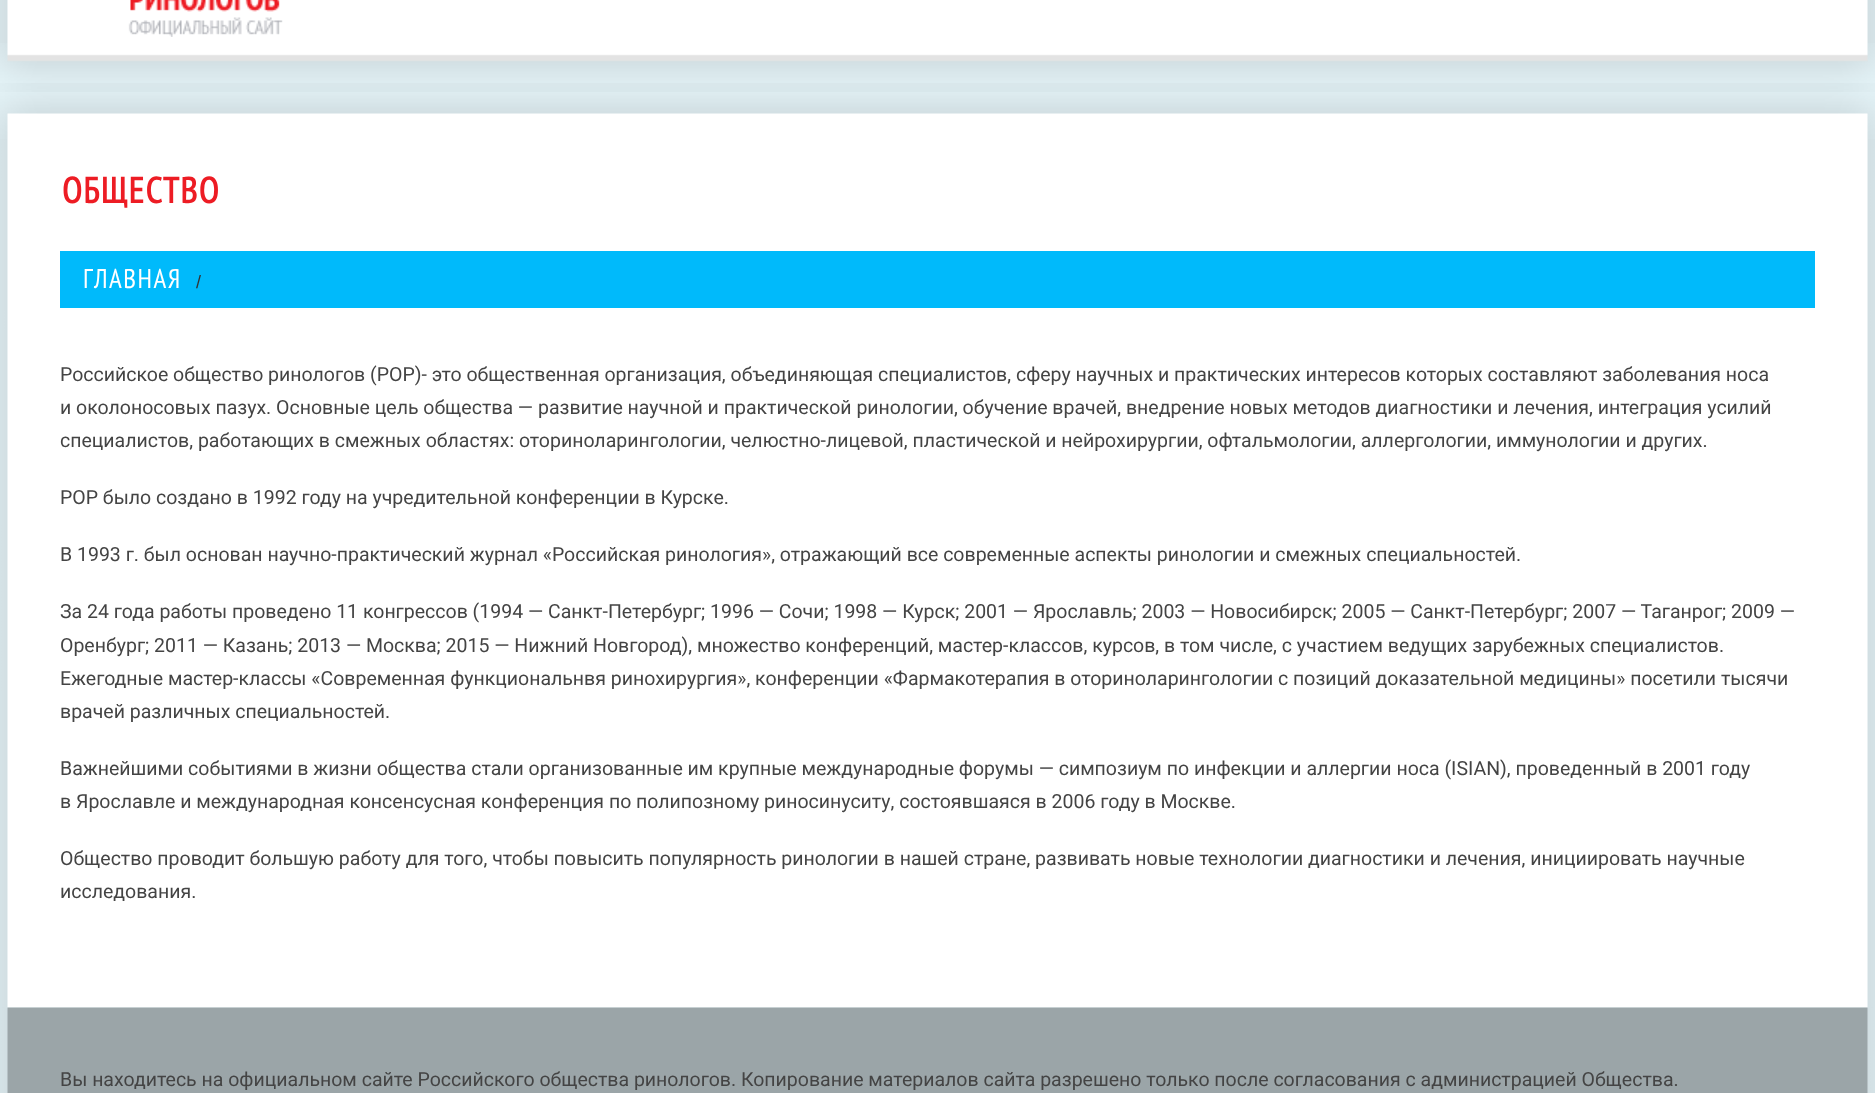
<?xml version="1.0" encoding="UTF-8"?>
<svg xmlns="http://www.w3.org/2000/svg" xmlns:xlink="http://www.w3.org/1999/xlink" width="1875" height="1093">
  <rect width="100%" height="100%" fill="#e7f6fa" />
  <image x="0" y="0" width="1875" height="43" xlink:href="image1.png" />
  <image x="128" y="0" width="155" height="37" xlink:href="image2.png" />
  <image x="0" y="83" width="1875" height="56" xlink:href="image5.png" />
  <image x="0" y="43" width="1875" height="49" xlink:href="image3.png" />
  <image x="0" y="139" width="1875" height="869" xlink:href="image4.png" />
  <rect x="60" y="251" width="1755" height="57" fill="#00bafb" />
  <image x="0" y="1007" width="1875" height="86" xlink:href="image6.png" />
  <text x="62" y="203" style="font-family: PT Sans Narrow; font-size: 36px; font-weight: bold; letter-spacing: 1.5px; fill: #ed1c24">ОБЩЕСТВО</text>
  <text x="83" y="288" style="font-family: PT Sans Narrow; font-size: 27px; letter-spacing: 1.5px; fill: #ffffff">ГЛАВНАЯ</text>
  <text x="196" y="288" style="font-family: Liberation Sans; font-size: 18px; letter-spacing: 1.5px; fill: #333333">/</text>
  <text x="60" y="381" style="font-family: Roboto; font-size: 19.5px; fill: #444444">Российское общество ринологов (РОР)- это общественная организация, объединяющая специалистов, сферу научных и практических интересов которых составляют заболевания носа</text>
  <text x="60" y="414" style="font-family: Roboto; font-size: 19.5px; fill: #444444">и околоносовых пазух. Основные цель общества — развитие научной и практической ринологии, обучение врачей, внедрение новых методов диагностики и лечения, интеграция усилий</text>
  <text x="60" y="447" style="font-family: Roboto; font-size: 19.5px; fill: #444444">специалистов, работающих в смежных областях: оториноларингологии, челюстно-лицевой, пластической и нейрохирургии, офтальмологии, аллергологии, иммунологии и других.</text>
  <text x="60" y="504" style="font-family: Roboto; font-size: 19.5px; fill: #444444">РОР было создано в 1992 году на учредительной конференции в Курске.</text>
  <text x="60" y="561" style="font-family: Roboto; font-size: 19.5px; fill: #444444">В 1993 г. был основан научно-практический журнал «Российская ринология», отражающий все современные аспекты ринологии и смежных специальностей.</text>
  <text x="60" y="618" style="font-family: Roboto; font-size: 19.5px; fill: #444444">За 24 года работы проведено 11 конгрессов (1994 — Санкт-Петербург; 1996 — Сочи; 1998 — Курск; 2001 — Ярославль; 2003 — Новосибирск; 2005 — Санкт-Петербург; 2007 — Таганрог; 2009 —</text>
  <text x="60" y="652" style="font-family: Roboto; font-size: 19.5px; fill: #444444">Оренбург; 2011 — Казань; 2013 — Москва; 2015 — Нижний Новгород), множество конференций, мастер-классов, курсов, в том числе, с участием ведущих зарубежных специалистов.</text>
  <text x="60" y="685" style="font-family: Roboto; font-size: 19.5px; fill: #444444">Ежегодные мастер-классы «Современная функциональнвя ринохирургия», конференции «Фармакотерапия в оториноларингологии с позиций доказательной медицины» посетили тысячи</text>
  <text x="60" y="718" style="font-family: Roboto; font-size: 19.5px; fill: #444444">врачей различных специальностей.</text>
  <text x="60" y="775" style="font-family: Roboto; font-size: 19.5px; fill: #444444">Важнейшими событиями в жизни общества стали организованные им крупные международные форумы — симпозиум по инфекции и аллергии носа (ISIAN), проведенный в 2001 году</text>
  <text x="60" y="808" style="font-family: Roboto; font-size: 19.5px; fill: #444444">в Ярославле и международная консенсусная конференция по полипозному риносинуситу, состоявшаяся в 2006 году в Москве.</text>
  <text x="60" y="865" style="font-family: Roboto; font-size: 19.5px; fill: #444444">Общество проводит большую работу для того, чтобы повысить популярность ринологии в нашей стране, развивать новые технологии диагностики и лечения, инициировать научные</text>
  <text x="60" y="898" style="font-family: Roboto; font-size: 19.5px; fill: #444444">исследования.</text>
  <text x="60" y="1086" style="font-family: Roboto; font-size: 19.5px; fill: #444444">Вы находитесь на официальном сайте Российского общества ринологов. Копирование материалов сайта разрешено только после согласования с администрацией Общества.</text>
</svg>
